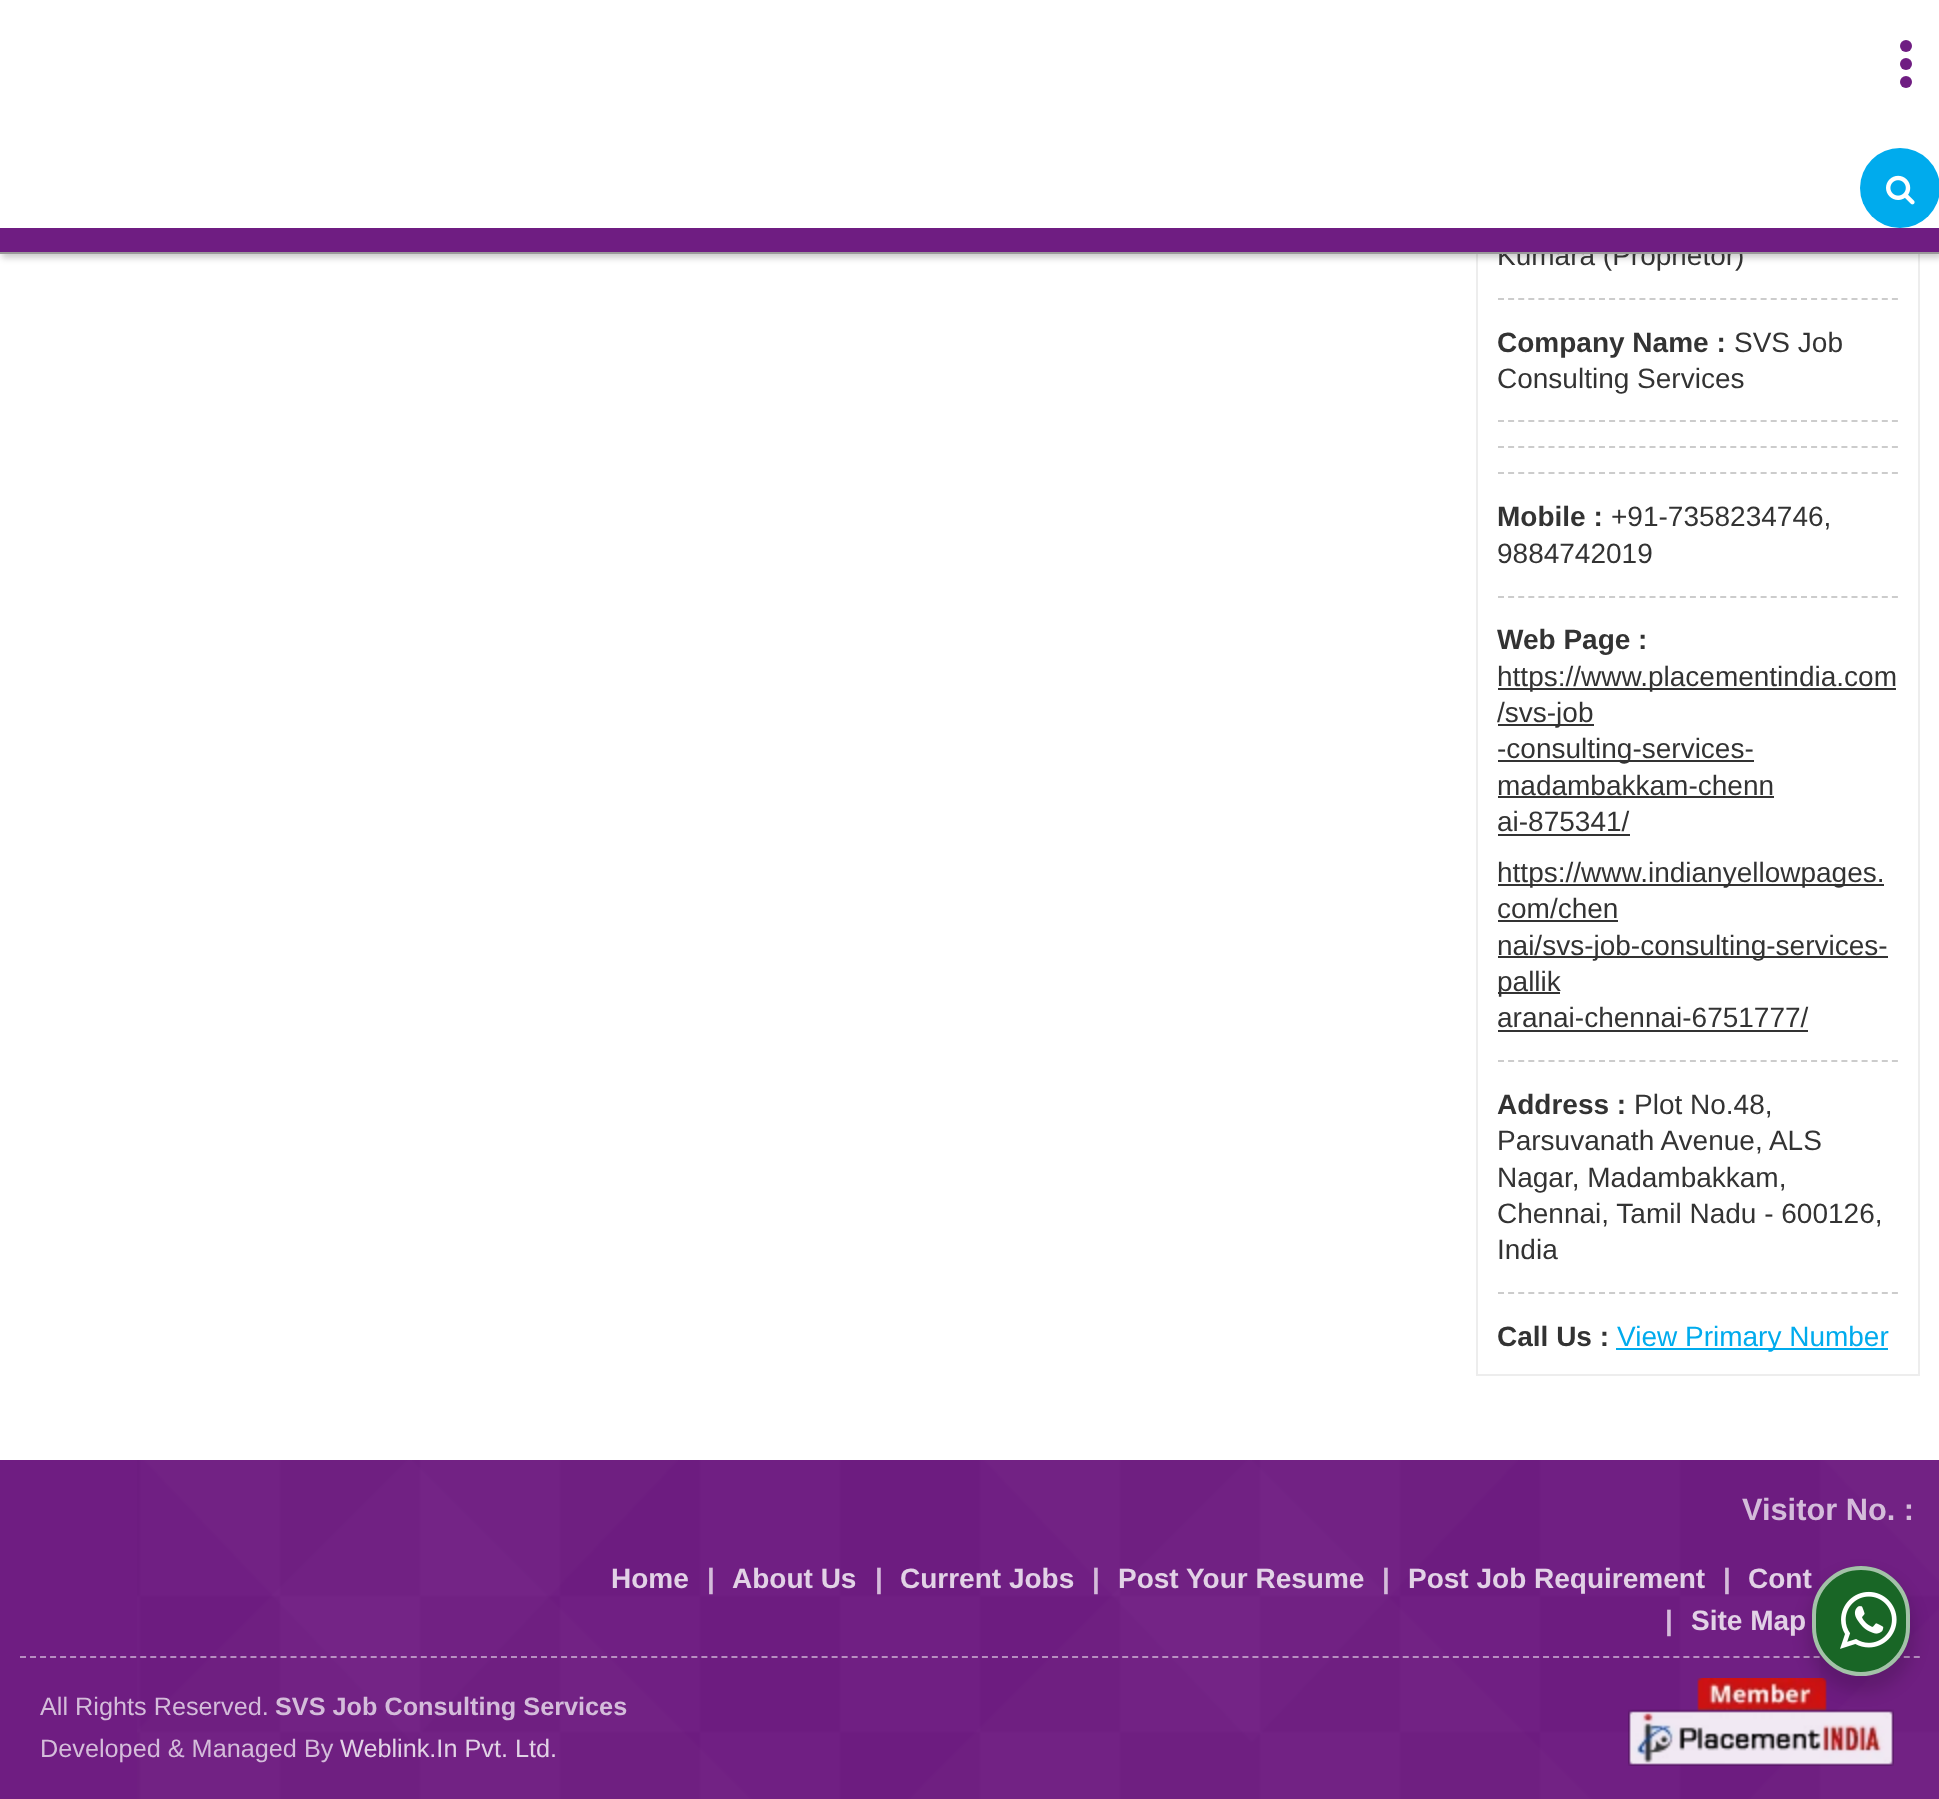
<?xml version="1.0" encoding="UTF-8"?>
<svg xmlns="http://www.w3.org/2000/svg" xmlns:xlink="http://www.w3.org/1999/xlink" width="1939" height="1799">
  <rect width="100%" height="100%" fill="#ffffff" />
  <rect x="1477" y="89" width="442" height="1286" fill="none" stroke="#ededed" stroke-width="2" />
  <rect x="2" y="4" width="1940" height="254" fill="#000000" fill-opacity="0.2" filter="blur(3px)" />
  <rect width="1939" height="228" fill="#ffffff" />
  <circle cx="1906" cy="64" r="6" fill="#6f1d82" />
  <circle cx="1906" cy="46" r="6" fill="#6f1d82" />
  <circle cx="1906" cy="82" r="6" fill="#6f1d82" />
  <circle cx="1900" cy="188" r="40" fill="#00abed" />
  <image x="1886" y="175" width="29" height="30" xlink:href="image1.png" />
  <path d="M 1498 299 h 400" fill="none" stroke="#cccccc" stroke-width="2" stroke-dasharray="6 4.1" />
  <path d="M 1498 421 h 400" fill="none" stroke="#cccccc" stroke-width="2" stroke-dasharray="6 4.1" />
  <path d="M 1498 447 h 400" fill="none" stroke="#cccccc" stroke-width="2" stroke-dasharray="6 4.1" />
  <path d="M 1498 473 h 400" fill="none" stroke="#cccccc" stroke-width="2" stroke-dasharray="6 4.1" />
  <path d="M 1498 597 h 400" fill="none" stroke="#cccccc" stroke-width="2" stroke-dasharray="6 4.1" />
  <rect x="1498" y="688" width="398" height="2" fill="#333333" />
  <rect x="1498" y="724" width="96" height="2" fill="#333333" />
  <rect x="1498" y="760" width="256" height="2" fill="#333333" />
  <rect x="1498" y="796" width="276" height="2" fill="#333333" />
  <rect x="1498" y="834" width="132" height="2" fill="#333333" />
  <rect x="1498" y="884" width="386" height="2" fill="#333333" />
  <rect x="1498" y="920" width="120" height="2" fill="#333333" />
  <rect x="1498" y="956" width="390" height="2" fill="#333333" />
  <rect x="1498" y="992" width="62" height="2" fill="#333333" />
  <rect x="1498" y="1030" width="310" height="2" fill="#333333" />
  <path d="M 1498 1061 h 400" fill="none" stroke="#cccccc" stroke-width="2" stroke-dasharray="6 4.1" />
  <path d="M 1498 1293 h 400" fill="none" stroke="#cccccc" stroke-width="2" stroke-dasharray="6 4.1" />
  <rect x="1616" y="1348" width="272" height="2" fill="#00abed" />
  <rect y="1460" width="1939" height="339" fill="#6f1d82" />
  <image x="137" y="1460" width="1802" height="339" xlink:href="image2.png" />
  <path d="M 20 1657 h 1900" fill="none" stroke="#ffffff" stroke-opacity="0.5" stroke-width="2" stroke-dasharray="6 4.02" />
  <image x="1628" y="1678" width="266" height="88" xlink:href="image3.png" />
  <rect x="1808" y="1574" width="106" height="118" rx="53" fill="#000000" fill-opacity="0.14" filter="blur(8px)" />
  <rect x="1812" y="1566" width="98" height="110" rx="49" fill="#196626" />
  <rect x="1814" y="1568" width="94" height="106" rx="47" fill="none" stroke="#ffffff" stroke-opacity="0.6" stroke-width="4" />
  <image x="1840" y="1591" width="57" height="58" xlink:href="image4.png" />
  <text x="1497" y="265" style="font-family: Liberation Sans; font-size: 28px; fill: #333333">Kumara (Proprietor)</text>
  <rect y="228" width="1939" height="24" fill="#6f1d82" />
  <rect y="252" width="1939" height="2" fill="#999999" />
  <text x="1497" y="352" style="font-family: Liberation Sans; font-size: 28px; font-weight: bold; fill: #333333">Company Name :</text>
  <text x="1734" y="352" style="font-family: Liberation Sans; font-size: 28px; fill: #333333">SVS Job</text>
  <text x="1497" y="388" style="font-family: Liberation Sans; font-size: 28px; fill: #333333">Consulting Services</text>
  <text x="1497" y="526" style="font-family: Liberation Sans; font-size: 28px; font-weight: bold; fill: #333333">Mobile :</text>
  <text x="1611" y="526" style="font-family: Liberation Sans; font-size: 28px; fill: #333333">+91-7358234746,</text>
  <text x="1497" y="563" style="font-family: Liberation Sans; font-size: 28px; fill: #333333">9884742019</text>
  <text x="1497" y="649" style="font-family: Liberation Sans; font-size: 28px; font-weight: bold; fill: #333333">Web Page :</text>
  <text x="1497" y="686" style="font-family: Liberation Sans; font-size: 28px; fill: #333333">https://www.placementindia.com</text>
  <text x="1497" y="722" style="font-family: Liberation Sans; font-size: 28px; fill: #333333">/svs-job</text>
  <text x="1497" y="758" style="font-family: Liberation Sans; font-size: 28px; fill: #333333">-consulting-services-</text>
  <text x="1497" y="795" style="font-family: Liberation Sans; font-size: 28px; fill: #333333">madambakkam-chenn</text>
  <text x="1497" y="831" style="font-family: Liberation Sans; font-size: 28px; fill: #333333">ai-875341/</text>
  <text x="1497" y="882" style="font-family: Liberation Sans; font-size: 28px; fill: #333333">https://www.indianyellowpages.</text>
  <text x="1497" y="918" style="font-family: Liberation Sans; font-size: 28px; fill: #333333">com/chen</text>
  <text x="1497" y="955" style="font-family: Liberation Sans; font-size: 28px; fill: #333333">nai/svs-job-consulting-services-</text>
  <text x="1497" y="991" style="font-family: Liberation Sans; font-size: 28px; fill: #333333">pallik</text>
  <text x="1497" y="1027" style="font-family: Liberation Sans; font-size: 28px; fill: #333333">aranai-chennai-6751777/</text>
  <text x="1497" y="1114" style="font-family: Liberation Sans; font-size: 28px; font-weight: bold; fill: #333333">Address :</text>
  <text x="1634" y="1114" style="font-family: Liberation Sans; font-size: 28px; fill: #333333">Plot No.48,</text>
  <text x="1497" y="1150" style="font-family: Liberation Sans; font-size: 28px; fill: #333333">Parsuvanath Avenue, ALS</text>
  <text x="1497" y="1187" style="font-family: Liberation Sans; font-size: 28px; fill: #333333">Nagar, Madambakkam,</text>
  <text x="1497" y="1223" style="font-family: Liberation Sans; font-size: 28px; fill: #333333">Chennai, Tamil Nadu - 600126,</text>
  <text x="1497" y="1259" style="font-family: Liberation Sans; font-size: 28px; fill: #333333">India</text>
  <text x="1497" y="1346" style="font-family: Liberation Sans; font-size: 28px; font-weight: bold; fill: #333333">Call Us :</text>
  <text x="1617" y="1346" style="font-family: Liberation Sans; font-size: 28px; fill: #00abed">View Primary Number</text>
  <text x="1742" y="1520" style="font-family: Liberation Sans; font-size: 30.75px; font-weight: bold; fill: #d4bcda">Visitor No. :</text>
  <text x="611" y="1588" style="font-family: Liberation Sans; font-size: 28px; font-weight: bold; fill: #e2d2e6">Home</text>
  <text x="707" y="1588" style="font-family: Liberation Sans; font-size: 28px; font-weight: bold; fill: #d4bcda">|</text>
  <text x="732" y="1588" style="font-family: Liberation Sans; font-size: 28px; font-weight: bold; fill: #e2d2e6">About Us</text>
  <text x="875" y="1588" style="font-family: Liberation Sans; font-size: 28px; font-weight: bold; fill: #d4bcda">|</text>
  <text x="900" y="1588" style="font-family: Liberation Sans; font-size: 28px; font-weight: bold; fill: #e2d2e6">Current Jobs</text>
  <text x="1092" y="1588" style="font-family: Liberation Sans; font-size: 28px; font-weight: bold; fill: #d4bcda">|</text>
  <text x="1118" y="1588" style="font-family: Liberation Sans; font-size: 28px; font-weight: bold; fill: #e2d2e6">Post Your Resume</text>
  <text x="1382" y="1588" style="font-family: Liberation Sans; font-size: 28px; font-weight: bold; fill: #d4bcda">|</text>
  <text x="1408" y="1588" style="font-family: Liberation Sans; font-size: 28px; font-weight: bold; fill: #e2d2e6">Post Job Requirement</text>
  <text x="1723" y="1588" style="font-family: Liberation Sans; font-size: 28px; font-weight: bold; fill: #d4bcda">|</text>
  <text x="1748" y="1588" style="font-family: Liberation Sans; font-size: 28px; font-weight: bold; fill: #e2d2e6">Cont</text>
  <text x="1665" y="1630" style="font-family: Liberation Sans; font-size: 28px; font-weight: bold; fill: #d4bcda">|</text>
  <text x="1691" y="1630" style="font-family: Liberation Sans; font-size: 28px; font-weight: bold; fill: #e2d2e6">Site Map</text>
  <text x="40" y="1715" style="font-family: Liberation Sans; font-size: 25.25px; fill: #d4bcda">All Rights Reserved.</text>
  <text x="275" y="1715" style="font-family: Liberation Sans; font-size: 25.25px; font-weight: bold; fill: #d4bcda">SVS Job Consulting Services</text>
  <text x="40" y="1757" style="font-family: Liberation Sans; font-size: 25.25px; fill: #d4bcda">Developed &amp; Managed By</text>
  <text x="340" y="1757" style="font-family: Liberation Sans; font-size: 25.25px; fill: #e2d2e6">Weblink.In Pvt. Ltd.</text>
</svg>
